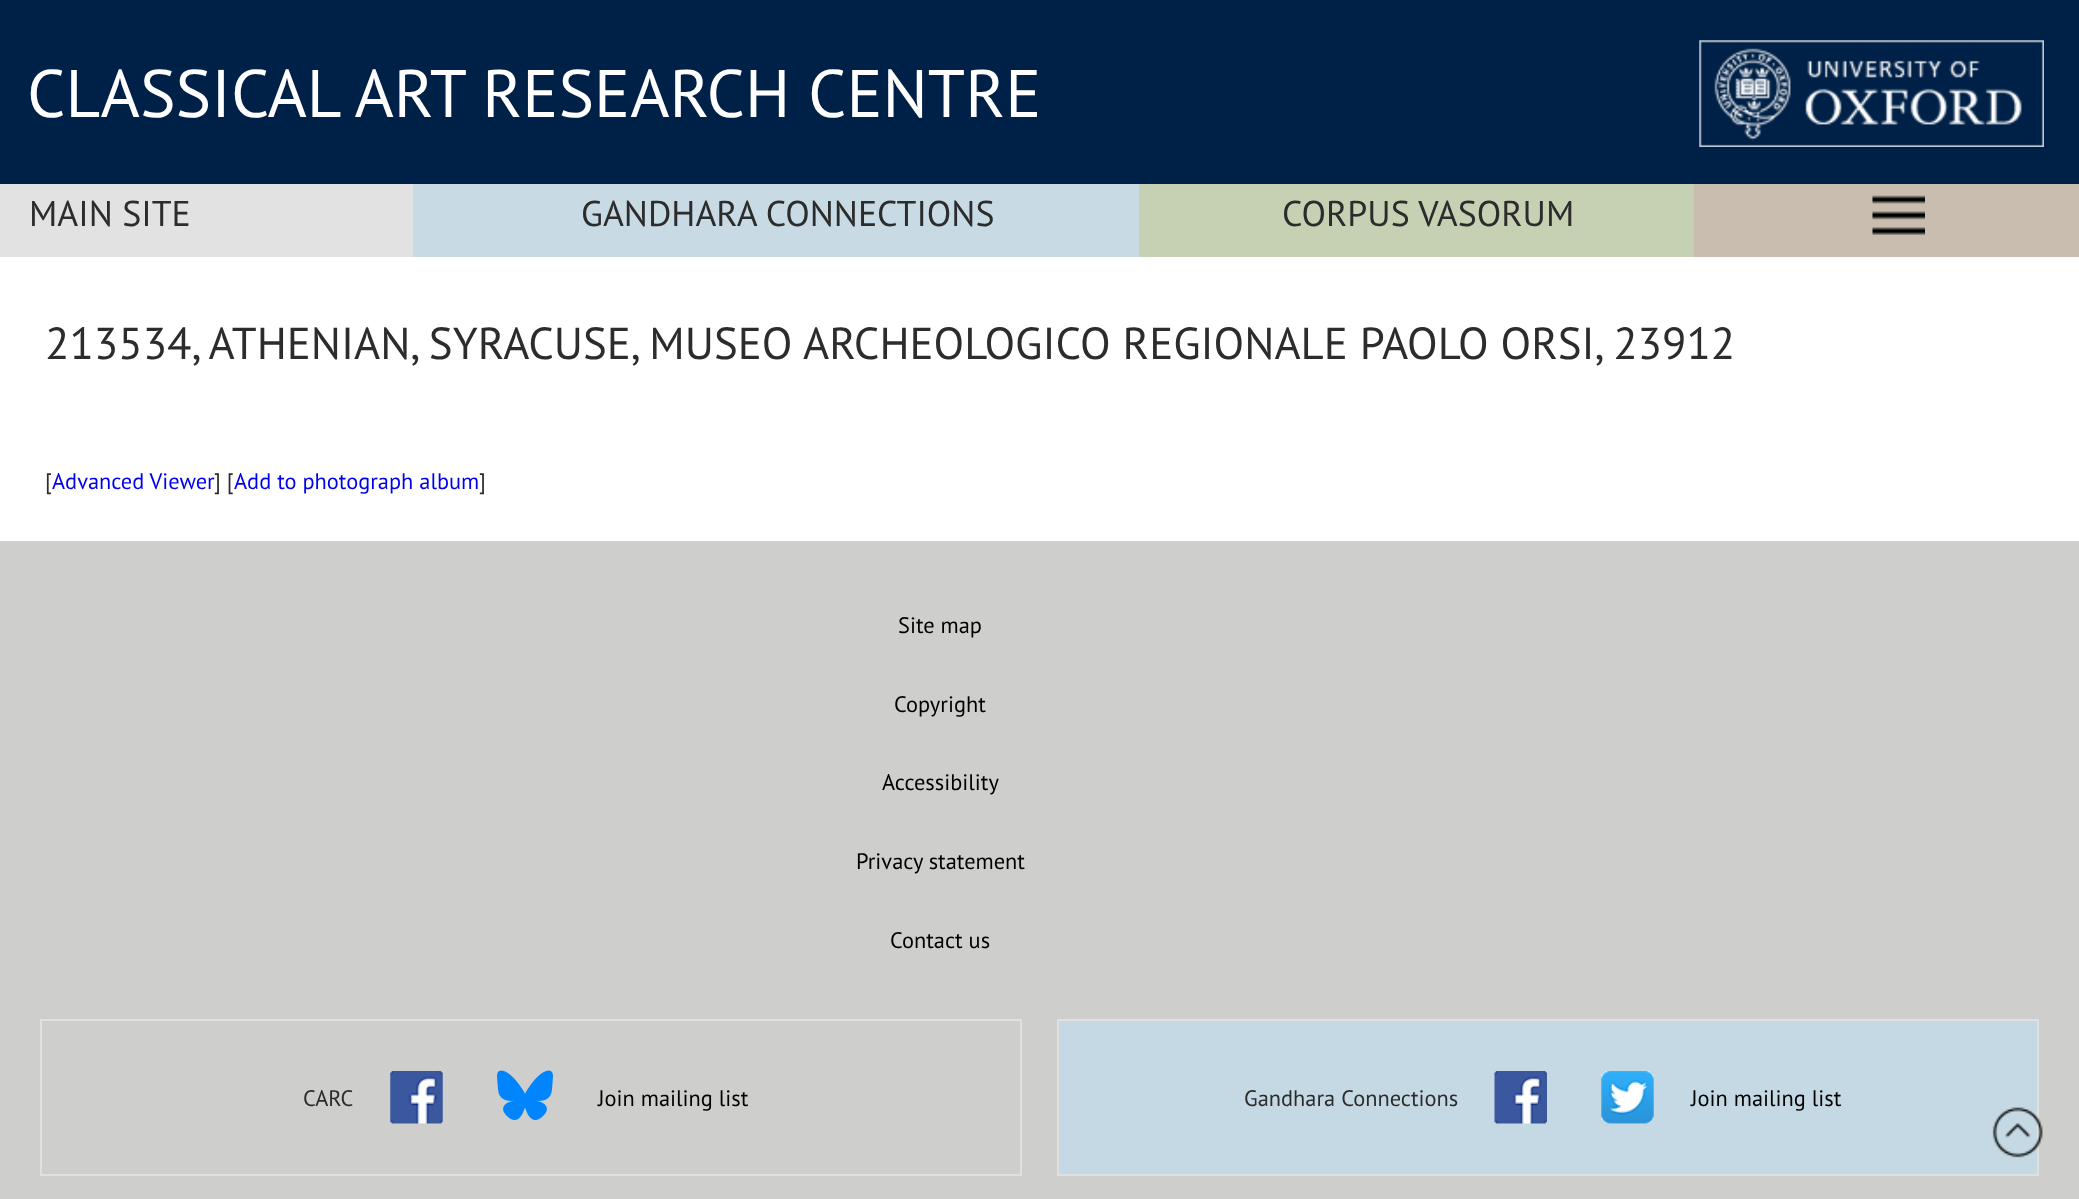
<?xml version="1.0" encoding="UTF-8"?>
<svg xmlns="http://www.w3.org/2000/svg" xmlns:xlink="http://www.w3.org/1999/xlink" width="2079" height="1199">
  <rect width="100%" height="100%" fill="#ffffff" />
  <rect width="2079" height="184" fill="#002147" />
  <image x="1699" y="40" width="345" height="107" xlink:href="image1.png" />
  <rect y="184" width="413" height="73" fill="#e2e2e2" />
  <rect x="413" y="184" width="726" height="73" fill="#c8dbe5" />
  <rect x="1139" y="184" width="555" height="73" fill="#c5d1b2" />
  <rect x="1694" y="184" width="385" height="73" fill="#c8bdae" />
  <image x="1872" y="195" width="53" height="40" xlink:href="image2.png" />
  <rect y="541" width="2079" height="658" fill="#cececc" />
  <rect x="41" y="1020" width="980" height="155" fill="none" stroke="#e0e0e0" stroke-width="2" />
  <image x="390" y="1071" width="53" height="53" xlink:href="image3.png" />
  <image x="497" y="1070" width="56" height="50" xlink:href="image4.png" />
  <rect x="1058" y="1020" width="980" height="155" fill="#c5d9e4" stroke="#e0e0e0" stroke-width="2" />
  <image x="1494" y="1071" width="53" height="53" xlink:href="image5.png" />
  <image x="1601" y="1071" width="53" height="53" xlink:href="image6.png" />
  <image x="1992" y="1107" width="51" height="51" xlink:href="image7.png" />
  <text x="27" y="117" style="font-family: PT Sans; font-size: 67.25px; fill: #ffffff">CLASSICAL ART RESEARCH CENTRE</text>
  <text x="29" y="226" style="font-family: PT Sans; font-size: 35.8px; fill: #2c2c2c">MAIN SITE</text>
  <text x="581" y="226" style="font-family: PT Sans; font-size: 35.8px; fill: #2c2c2c">GANDHARA CONNECTIONS</text>
  <text x="1282" y="226" style="font-family: PT Sans; font-size: 35.8px; fill: #2c2c2c">CORPUS VASORUM</text>
  <text x="45" y="359" style="font-family: PT Sans; font-size: 44.8px; fill: #2c2c2c">213534, ATHENIAN, SYRACUSE, MUSEO ARCHEOLOGICO REGIONALE PAOLO ORSI, 23912</text>
  <text x="45" y="489" style="font-family: PT Sans; font-size: 22.4px; fill: #2c2c2c">[</text>
  <text x="52" y="489" style="font-family: PT Sans; font-size: 22.4px; fill: #0000ee">Advanced Viewer</text>
  <text x="214" y="489" style="font-family: PT Sans; font-size: 22.4px; fill: #2c2c2c">] [</text>
  <text x="234" y="489" style="font-family: PT Sans; font-size: 22.4px; fill: #0000ee">Add to photograph album</text>
  <text x="479" y="489" style="font-family: PT Sans; font-size: 22.4px; fill: #2c2c2c">]</text>
  <text x="898" y="633" style="font-family: PT Sans; font-size: 22.4px; fill: #000000">Site map</text>
  <text x="894" y="712" style="font-family: PT Sans; font-size: 22.4px; fill: #000000">Copyright</text>
  <text x="882" y="790" style="font-family: PT Sans; font-size: 22.4px; fill: #000000">Accessibility</text>
  <text x="856" y="869" style="font-family: PT Sans; font-size: 22.4px; fill: #000000">Privacy statement</text>
  <text x="890" y="948" style="font-family: PT Sans; font-size: 22.4px; fill: #000000">Contact us</text>
  <text x="303" y="1106" style="font-family: PT Sans; font-size: 22.4px; fill: #2c2c2c">CARC</text>
  <text x="598" y="1106" style="font-family: PT Sans; font-size: 22.4px; fill: #000000">Join mailing list</text>
  <text x="1244" y="1106" style="font-family: PT Sans; font-size: 22.4px; fill: #2c2c2c">Gandhara Connections</text>
  <text x="1691" y="1106" style="font-family: PT Sans; font-size: 22.4px; fill: #000000">Join mailing list</text>
</svg>
